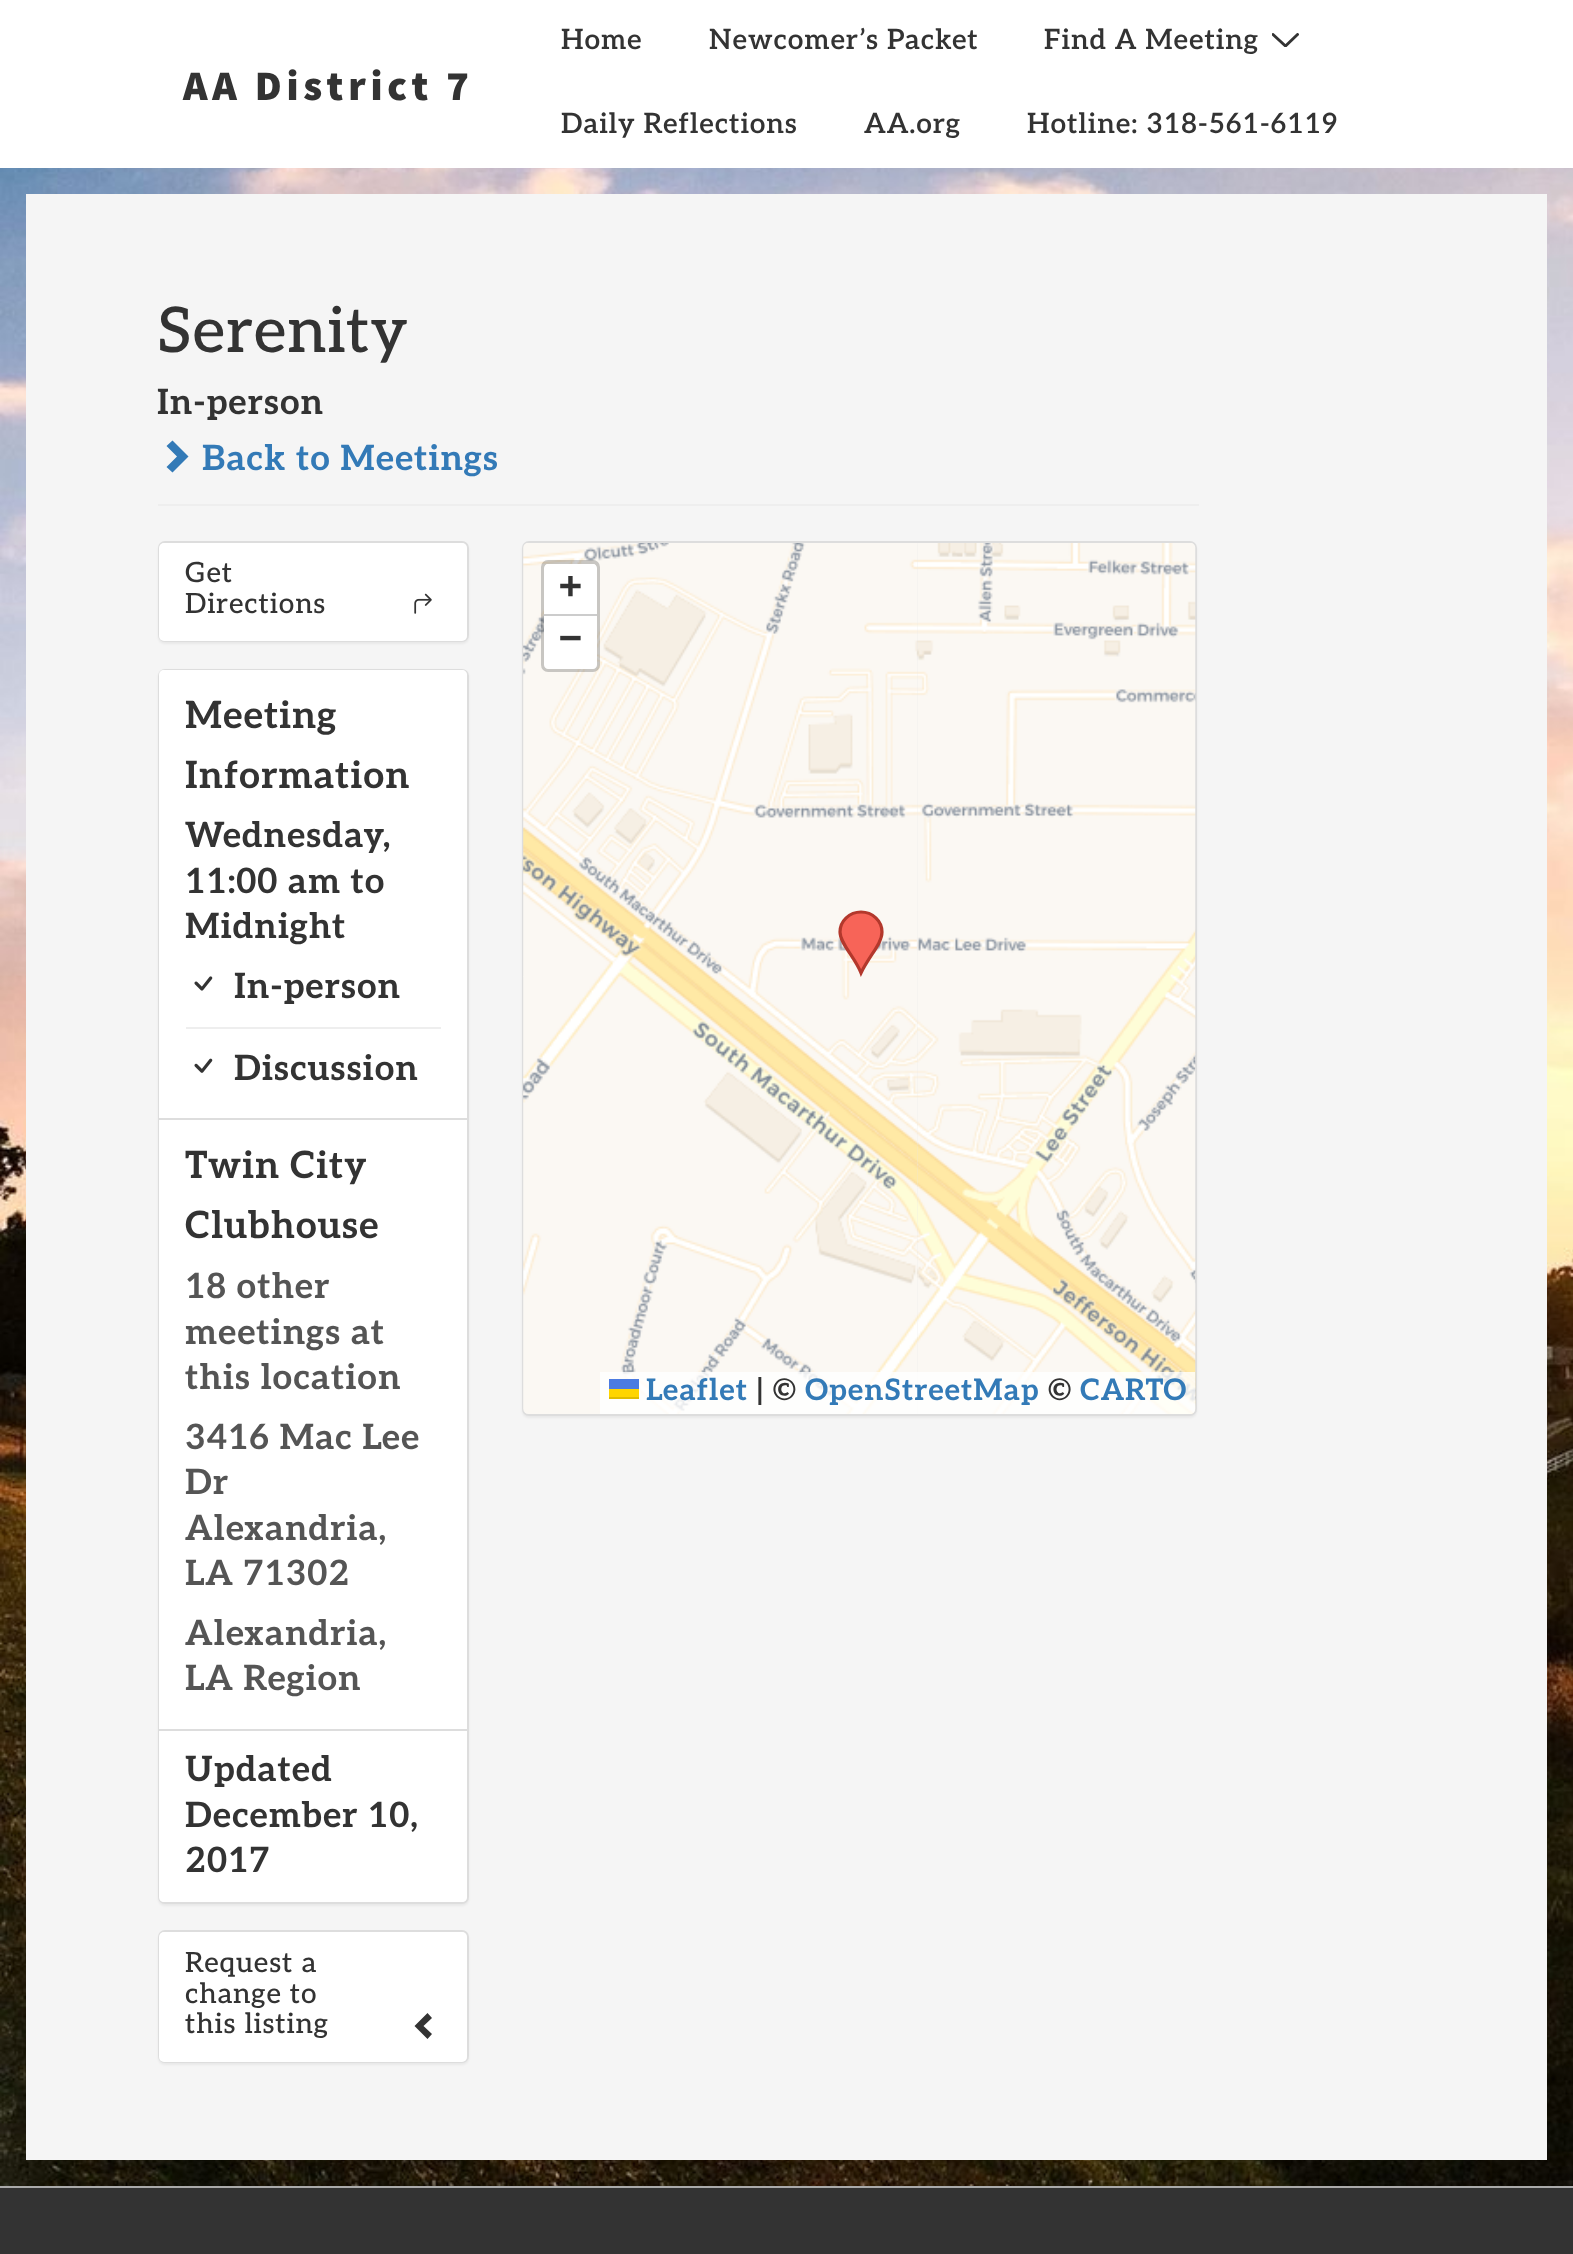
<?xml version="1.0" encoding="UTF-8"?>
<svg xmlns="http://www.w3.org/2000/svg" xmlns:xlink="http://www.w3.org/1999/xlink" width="1573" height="2254">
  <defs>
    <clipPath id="clip1"><rect x="1272" y="33" width="27" height="14" /></clipPath>
  </defs>
  <rect width="100%" height="100%" fill="#ffffff" />
  <image x="0" y="168" width="1573" height="2018" xlink:href="image1.png" />
  <g clip-path="url(#clip1)">
    <path d="M 1273 34.5 l 12.5 11.5 l 12 -11.5" fill="none" stroke="#333333" stroke-width="2.9" stroke-linecap="round" />
  </g>
  <rect x="26" y="194" width="1521" height="1966" fill="#f5f5f5" />
  <rect x="158" y="504" width="1041" height="2" fill="#eeeeee" />
  <path d="M 188.5 456.5 l -16 16 l -6 -5.5 l 10.5 -10.5 l -10.5 -10.5 l 6 -5.5 z" fill="#337ab7" />
  <rect x="158" y="543" width="311" height="101" rx="7" fill="#000000" fill-opacity="0.05" filter="blur(1px)" />
  <rect x="159" y="542" width="309" height="99" rx="6" fill="none" stroke="#dddddd" stroke-width="2" />
  <rect x="159" y="543" width="308" height="98" rx="5" fill="#ffffff" />
  <image x="414" y="593" width="18" height="21" xlink:href="image2.png" />
  <rect x="158" y="670" width="311" height="1236" rx="7" fill="#000000" fill-opacity="0.05" filter="blur(1px)" />
  <rect x="159" y="670" width="309" height="1233" rx="6" fill="none" stroke="#dddddd" stroke-width="2" />
  <path d="M 164 670 h 298 c 3 0 5 2 5 5 v 445 h -308 v -445 c 0 -3 2 -5 5 -5 z" fill="#ffffff" />
  <rect x="159" y="1118" width="308" height="2" fill="#dddddd" />
  <image x="194" y="976" width="19" height="15" xlink:href="image3.png" />
  <rect x="186" y="1027" width="255" height="2" fill="#eeeeee" />
  <image x="194" y="1058" width="19" height="15" xlink:href="image4.png" />
  <rect x="159" y="1120" width="308" height="609" fill="#ffffff" />
  <path d="M 159 1729 h 308 v 168 c 0 3 -2 5 -5 5 h -298 c -3 0 -5 -2 -5 -5 z" fill="#ffffff" />
  <rect x="159" y="1729" width="308" height="2" fill="#dddddd" />
  <rect x="158" y="1932" width="311" height="133" rx="7" fill="#000000" fill-opacity="0.05" filter="blur(1px)" />
  <rect x="159" y="1931" width="309" height="131" rx="6" fill="none" stroke="#dddddd" stroke-width="2" />
  <rect x="159" y="1932" width="308" height="130" rx="5" fill="#ffffff" />
  <path d="M 432 2018 l -8.5 8 l 8.5 8 l -4.5 5 l -13 -13 l 13 -13 z" fill="#333333" />
  <rect x="522" y="543" width="675" height="875" rx="7" fill="#000000" fill-opacity="0.05" filter="blur(1px)" />
  <rect x="523" y="542" width="673" height="873" rx="6" fill="none" stroke="#dddddd" stroke-width="2" />
  <image x="523" y="543" width="394" height="434" xlink:href="image5.png" />
  <image x="916" y="543" width="280" height="434" xlink:href="image6.png" />
  <image x="523" y="976" width="394" height="438" xlink:href="image7.png" />
  <image x="916" y="976" width="280" height="438" xlink:href="image8.png" />
  <path d="M 861 912 c 12 0 21 9 21 20 c 0 11 -13 23 -21 41 c -6 -15 -21 -30 -21 -41 c 0 -11 9 -20 21 -20 z" fill="#f76458" />
  <path d="M 861 912 c 11.5 0 21 9 21 20 c 0 11.5 -12.5 23.5 -21 41 c -6 -15.5 -21 -29.5 -21 -41 c 0 -11 9.5 -20 21 -20 z" fill="none" stroke="#b3382c" stroke-width="3.2" />
  <rect x="543" y="562" width="55" height="108" rx="5" fill="none" stroke="#000000" stroke-opacity="0.2" stroke-width="4" />
  <path d="M 548 564 h 45 c 2 0 4 2 4 4 v 48 h -53 v -48 c 0 -2 2 -4 4 -4 z" fill="#ffffff" />
  <rect x="544" y="614" width="53" height="2" fill="#cccccc" />
  <path d="M 544 616 h 53 v 49 c 0 2 -2 4 -4 4 h -45 c -2 0 -4 -2 -4 -4 z" fill="#ffffff" />
  <path d="M 600 1372 h 595 v 37 c 0 3 -2 5 -5 5 h -590 z" fill="#ffffff" fill-opacity="0.8" />
  <rect x="609" y="1379" width="30" height="10" fill="#4c7be1" />
  <rect x="609" y="1389" width="30" height="8" fill="#ffd500" />
  <rect x="609" y="1397" width="30" height="2" fill="#e0bc00" />
  <rect y="2188" width="1573" height="66" fill="#333333" />
  <rect y="2186" width="1573" height="2" fill="#aaaaaa" />
  <text x="183" y="100" style="font-family: Assistant; font-size: 42px; font-weight: 800; letter-spacing: 4.75px; fill: #333333">AA District 7</text>
  <text x="561" y="49" style="font-family: Aleo; font-size: 28px; font-weight: 600; letter-spacing: 0.9px; fill: #333333">Home</text>
  <text x="709" y="49" style="font-family: Aleo; font-size: 28px; font-weight: 600; letter-spacing: 0.9px; fill: #333333">Newcomer’s Packet</text>
  <text x="1044" y="49" style="font-family: Aleo; font-size: 28px; font-weight: 600; letter-spacing: 0.9px; fill: #333333">Find A Meeting</text>
  <text x="561" y="133" style="font-family: Aleo; font-size: 28px; font-weight: 600; letter-spacing: 0.9px; fill: #333333">Daily Reflections</text>
  <text x="864" y="133" style="font-family: Aleo; font-size: 28px; font-weight: 600; letter-spacing: 0.9px; fill: #333333">AA.org</text>
  <text x="1027" y="133" style="font-family: Aleo; font-size: 28px; font-weight: 600; letter-spacing: 0.9px; fill: #333333">Hotline: 318-561-6119</text>
  <text x="157" y="352" style="font-family: Aleo; font-size: 63px; font-weight: 500; letter-spacing: 0.9px; fill: #333333">Serenity</text>
  <text x="157" y="414" style="font-family: Aleo; font-size: 35px; font-weight: bold; letter-spacing: 0.9px; fill: #333333">In-person</text>
  <text x="202" y="470" style="font-family: Aleo; font-size: 35px; font-weight: bold; letter-spacing: 0.9px; fill: #337ab7">Back to Meetings</text>
  <text x="185" y="582" style="font-family: Aleo; font-size: 28px; font-weight: 500; letter-spacing: 0.9px; fill: #333333">Get</text>
  <text x="185" y="613" style="font-family: Aleo; font-size: 28px; font-weight: 500; letter-spacing: 0.9px; fill: #333333">Directions</text>
  <text x="185" y="728" style="font-family: Aleo; font-size: 37.5px; font-weight: bold; letter-spacing: 0.9px; fill: #333333">Meeting</text>
  <text x="185" y="788" style="font-family: Aleo; font-size: 37.5px; font-weight: bold; letter-spacing: 0.9px; fill: #333333">Information</text>
  <text x="185" y="847" style="font-family: Aleo; font-size: 35px; font-weight: bold; letter-spacing: 0.9px; fill: #333333">Wednesday,</text>
  <text x="185" y="893" style="font-family: Aleo; font-size: 35px; font-weight: bold; letter-spacing: 0.9px; fill: #333333">11:00 am to</text>
  <text x="185" y="938" style="font-family: Aleo; font-size: 35px; font-weight: bold; letter-spacing: 0.9px; fill: #333333">Midnight</text>
  <text x="234" y="998" style="font-family: Aleo; font-size: 35px; font-weight: bold; letter-spacing: 0.9px; fill: #333333">In-person</text>
  <text x="234" y="1080" style="font-family: Aleo; font-size: 35px; font-weight: bold; letter-spacing: 0.9px; fill: #333333">Discussion</text>
  <text x="185" y="1178" style="font-family: Aleo; font-size: 37.5px; font-weight: bold; letter-spacing: 0.9px; fill: #333333">Twin City</text>
  <text x="185" y="1238" style="font-family: Aleo; font-size: 37.5px; font-weight: bold; letter-spacing: 0.9px; fill: #333333">Clubhouse</text>
  <text x="185" y="1298" style="font-family: Aleo; font-size: 35px; font-weight: bold; letter-spacing: 0.9px; fill: #555555">18 other</text>
  <text x="185" y="1344" style="font-family: Aleo; font-size: 35px; font-weight: bold; letter-spacing: 0.9px; fill: #555555">meetings at</text>
  <text x="185" y="1389" style="font-family: Aleo; font-size: 35px; font-weight: bold; letter-spacing: 0.9px; fill: #555555">this location</text>
  <text x="185" y="1449" style="font-family: Aleo; font-size: 35px; font-weight: bold; letter-spacing: 0.9px; fill: #555555">3416 Mac Lee</text>
  <text x="185" y="1494" style="font-family: Aleo; font-size: 35px; font-weight: bold; letter-spacing: 0.9px; fill: #555555">Dr</text>
  <text x="185" y="1540" style="font-family: Aleo; font-size: 35px; font-weight: bold; letter-spacing: 0.9px; fill: #555555">Alexandria,</text>
  <text x="185" y="1585" style="font-family: Aleo; font-size: 35px; font-weight: bold; letter-spacing: 0.9px; fill: #555555">LA 71302</text>
  <text x="185" y="1645" style="font-family: Aleo; font-size: 35px; font-weight: bold; letter-spacing: 0.9px; fill: #555555">Alexandria,</text>
  <text x="185" y="1690" style="font-family: Aleo; font-size: 35px; font-weight: bold; letter-spacing: 0.9px; fill: #555555">LA Region</text>
  <text x="185" y="1781" style="font-family: Aleo; font-size: 35px; font-weight: bold; letter-spacing: 0.9px; fill: #333333">Updated</text>
  <text x="185" y="1827" style="font-family: Aleo; font-size: 35px; font-weight: bold; letter-spacing: 0.9px; fill: #333333">December 10,</text>
  <text x="185" y="1872" style="font-family: Aleo; font-size: 35px; font-weight: bold; letter-spacing: 0.9px; fill: #333333">2017</text>
  <text x="185" y="1972" style="font-family: Aleo; font-size: 28px; font-weight: 500; letter-spacing: 0.9px; fill: #333333">Request a</text>
  <text x="185" y="2003" style="font-family: Aleo; font-size: 28px; font-weight: 500; letter-spacing: 0.9px; fill: #333333">change to</text>
  <text x="185" y="2033" style="font-family: Aleo; font-size: 28px; font-weight: 500; letter-spacing: 0.9px; fill: #333333">this listing</text>
  <text x="559" y="598" style="font-family: DejaVu Sans Mono; font-size: 38px; font-weight: bold; letter-spacing: 0.9px; fill: #333333">+</text>
  <text x="559" y="650" style="font-family: DejaVu Sans Mono; font-size: 38px; font-weight: bold; letter-spacing: 0.9px; fill: #333333">−</text>
  <text x="646" y="1400" style="font-family: Aleo; font-size: 29.75px; font-weight: bold; letter-spacing: 0.9px; fill: #337ab7">Leaflet</text>
  <text x="756" y="1400" style="font-family: Aleo; font-size: 29.75px; font-weight: bold; letter-spacing: 0.9px; fill: #333333">| ©</text>
  <text x="805" y="1400" style="font-family: Aleo; font-size: 29.75px; font-weight: bold; letter-spacing: 0.9px; fill: #337ab7">OpenStreetMap</text>
  <text x="1048" y="1400" style="font-family: Aleo; font-size: 29.75px; font-weight: bold; letter-spacing: 0.9px; fill: #333333">©</text>
  <text x="1080" y="1400" style="font-family: Aleo; font-size: 29.75px; font-weight: bold; letter-spacing: 0.9px; fill: #337ab7">CARTO</text>
</svg>
